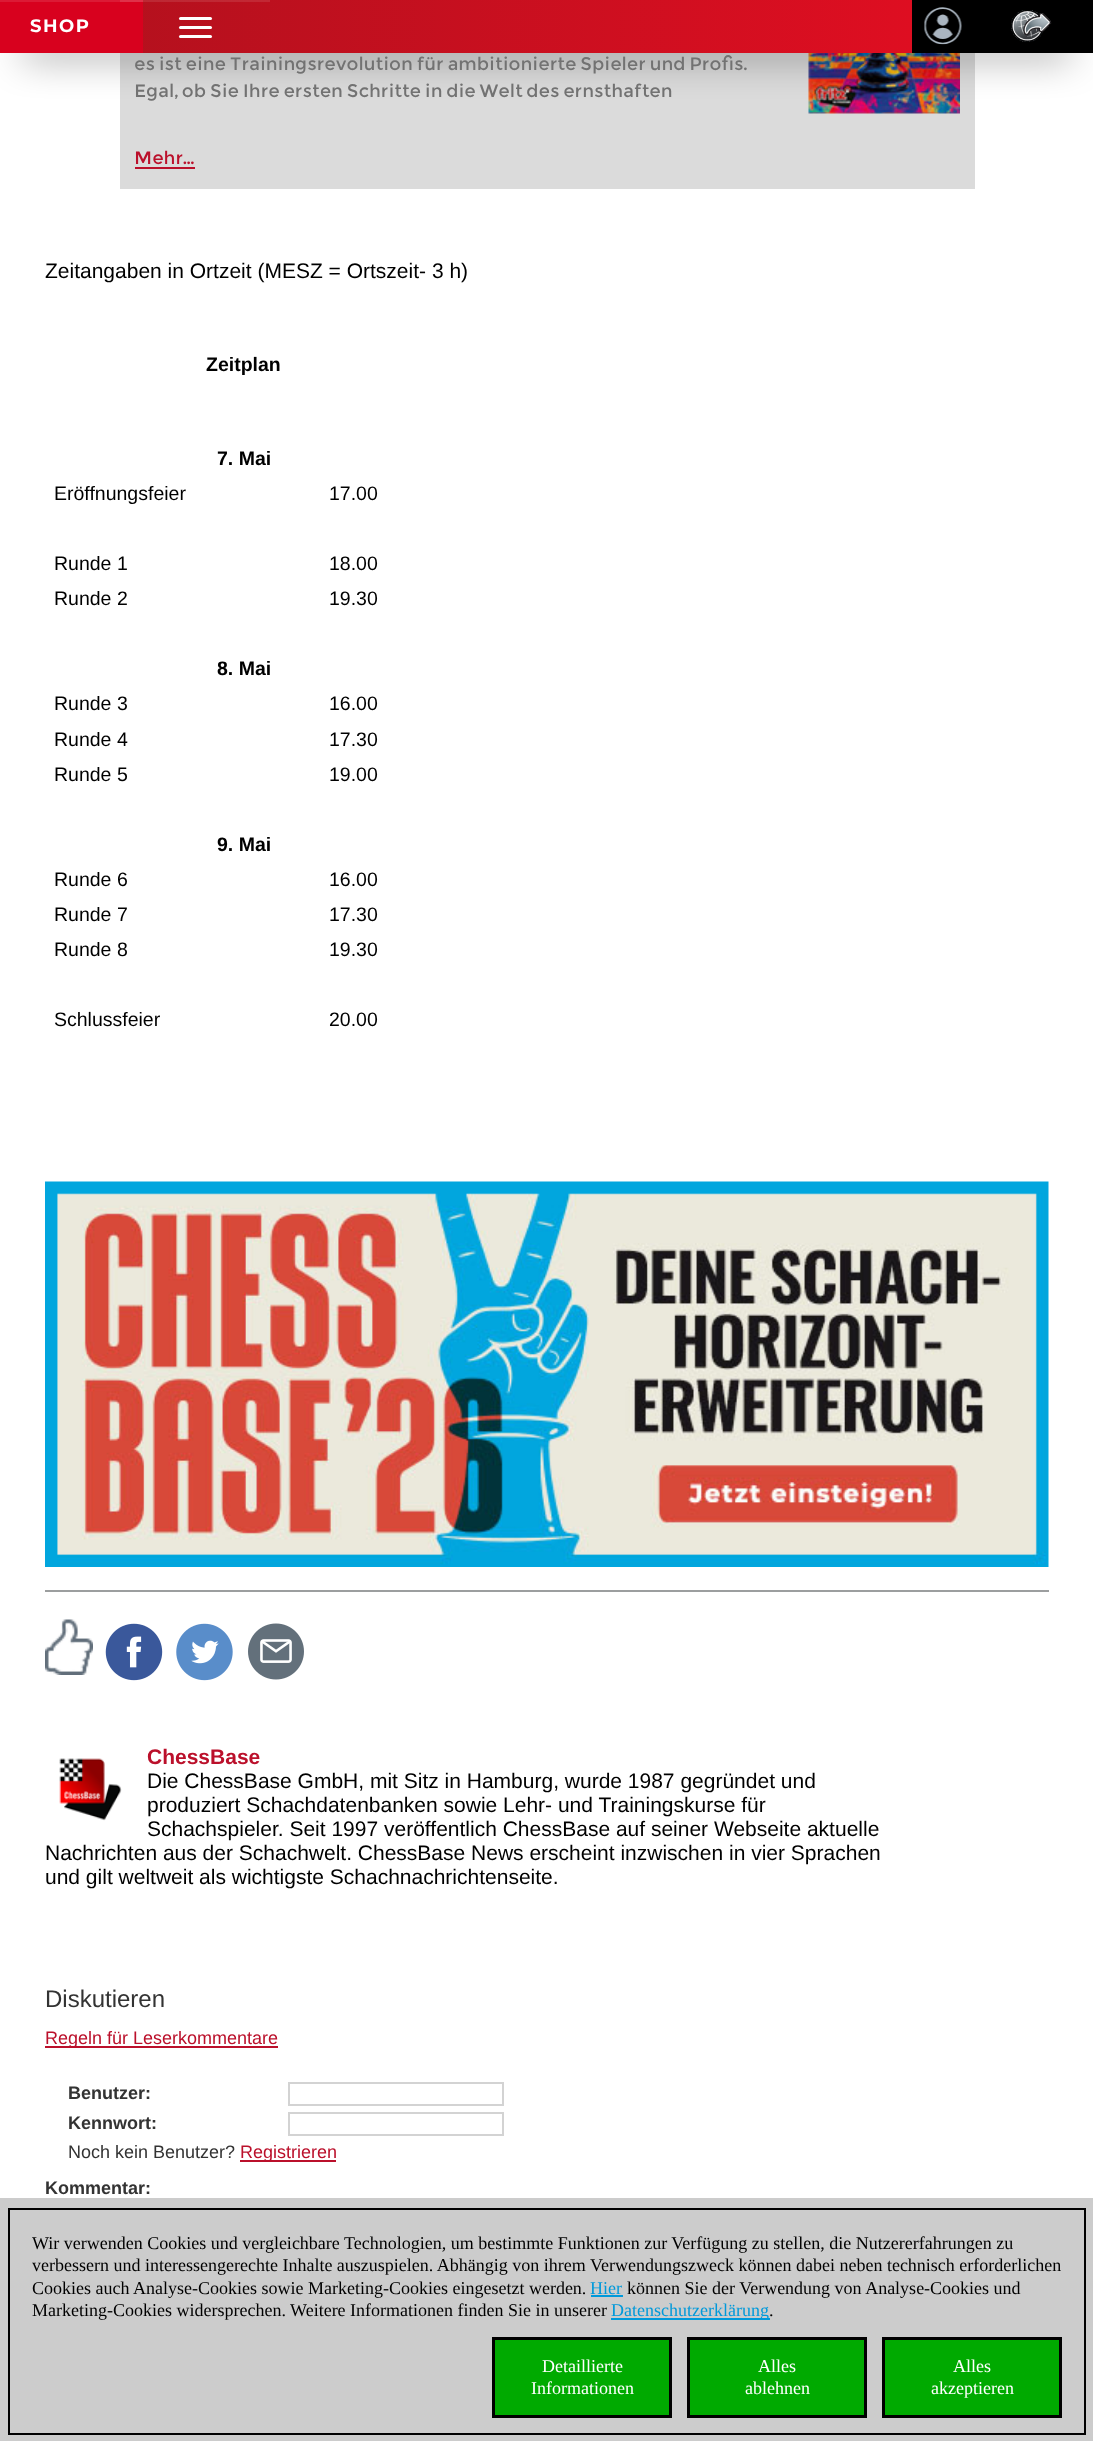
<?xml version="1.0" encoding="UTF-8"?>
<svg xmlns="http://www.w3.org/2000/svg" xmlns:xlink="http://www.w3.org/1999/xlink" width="1093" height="2441">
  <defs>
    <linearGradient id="g1" gradientUnits="userSpaceOnUse" x1="464" y1="-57" x2="464" y2="135"><stop offset="0" stop-color="#dbdbdb" stop-opacity="0" /><stop offset="0.75" stop-color="#dbdbdb" stop-opacity="0" /><stop offset="0.88" stop-color="#dbdbdb" stop-opacity="0.3" /><stop offset="1" stop-color="#dbdbdb" stop-opacity="0.95" /></linearGradient>
    <linearGradient id="g2" gradientUnits="userSpaceOnUse" x1="0" y1="26" x2="912" y2="26"><stop offset="0" stop-color="#ae111d" /><stop offset="1" stop-color="#de0e21" /></linearGradient>
  </defs>
  <rect width="100%" height="100%" fill="#ffffff" />
  <rect x="120" y="53" width="855" height="136" fill="#dbdbdb" />
  <rect x="136" y="89" width="536" height="12" fill="url(#g1)" />
  <rect x="136" y="89" width="536" height="12" fill="url(#g1)" />
  <image x="808" y="53" width="152" height="61" xlink:href="image3.png" />
  <rect x="23" y="45" width="1048" height="8" fill="#000000" fill-opacity="0.9" filter="blur(19px)" />
  <rect x="143" width="769" height="53" fill="url(#g2)" />
  <rect y="2" width="143" height="51" fill="#d8011e" />
  <rect width="143" height="2" fill="#dc1a35" />
  <rect x="120" width="150" height="2" fill="#ffffff" fill-opacity="0.1" />
  <rect x="179" y="17" width="33" height="3" rx="1.5" fill="#ffffff" />
  <rect x="179" y="26" width="33" height="3" rx="1.5" fill="#ffffff" />
  <rect x="179" y="35" width="33" height="3" rx="1.5" fill="#ffffff" />
  <rect x="912" width="181" height="53" fill="#000000" />
  <image x="924" y="7" width="38" height="38" xlink:href="image1.png" />
  <image x="1011" y="10" width="41" height="32" xlink:href="image2.png" />
  <rect x="135" y="167" width="60" height="2" fill="#bb102b" />
  <rect x="45" y="1590" width="1004" height="2" fill="#9c9e9f" />
  <image x="45" y="1181" width="1004" height="386" xlink:href="image4.png" />
  <image x="45" y="1619" width="48" height="56" xlink:href="image5.png" />
  <image x="105" y="1623" width="58" height="58" xlink:href="image6.png" />
  <image x="176" y="1623" width="57" height="58" xlink:href="image7.png" />
  <image x="248" y="1623" width="56" height="57" xlink:href="image8.png" />
  <image x="59" y="1758" width="63" height="63" xlink:href="image9.png" />
  <rect x="45" y="2046" width="233" height="2" fill="#bb102b" />
  <rect x="289" y="2083" width="214" height="22" fill="none" stroke="#d3d3d3" stroke-width="2" />
  <rect x="289" y="2113" width="214" height="22" fill="none" stroke="#d3d3d3" stroke-width="2" />
  <rect x="240" y="2160" width="96" height="2" fill="#bb102b" />
  <rect y="2198" width="1093" height="243" fill="#cccccc" />
  <rect x="9" y="2209" width="1076" height="225" fill="none" stroke="#000000" stroke-width="2" />
  <rect x="591" y="2295" width="32" height="2" fill="#0099da" />
  <rect x="611" y="2318" width="159" height="2" fill="#0099da" />
  <rect x="493.5" y="2338.5" width="177" height="78" fill="#00aa00" stroke="#000000" stroke-width="3" />
  <rect x="688.5" y="2338.5" width="177" height="78" fill="#00aa00" stroke="#000000" stroke-width="3" />
  <rect x="883.5" y="2338.5" width="177" height="78" fill="#00aa00" stroke="#000000" stroke-width="3" />
  <text x="30" y="32" style="font-family: Montserrat; font-size: 18px; font-weight: bold; letter-spacing: 1.5px; fill: #ffffff">SHOP</text>
  <text x="134" y="70" style="font-family: Montserrat; font-size: 18px; fill: #727272">es ist eine Trainingsrevolution für ambitionierte Spieler und Profis.</text>
  <text x="134" y="97" style="font-family: Montserrat; font-size: 18px; fill: #727272">Egal, ob Sie Ihre ersten Schritte in die Welt des ernsthaften</text>
  <text x="134" y="164" style="font-family: Montserrat; font-size: 18px; fill: #bb102b">Mehr...</text>
  <text x="45" y="278" style="font-family: Liberation Sans; font-size: 21px; fill: #000000">Zeitangaben in Ortzeit (MESZ = Ortszeit- 3 h)</text>
  <text x="206" y="371" style="font-family: Liberation Sans; font-size: 19.5px; font-weight: bold; fill: #000000">Zeitplan</text>
  <text x="217" y="465" style="font-family: Liberation Sans; font-size: 19.5px; font-weight: bold; fill: #000000">7. Mai</text>
  <text x="54" y="500" style="font-family: Liberation Sans; font-size: 19.5px; fill: #000000">Eröffnungsfeier</text>
  <text x="329" y="500" style="font-family: Liberation Sans; font-size: 19.5px; fill: #000000">17.00</text>
  <text x="54" y="570" style="font-family: Liberation Sans; font-size: 19.5px; fill: #000000">Runde 1</text>
  <text x="329" y="570" style="font-family: Liberation Sans; font-size: 19.5px; fill: #000000">18.00</text>
  <text x="54" y="605" style="font-family: Liberation Sans; font-size: 19.5px; fill: #000000">Runde 2</text>
  <text x="329" y="605" style="font-family: Liberation Sans; font-size: 19.5px; fill: #000000">19.30</text>
  <text x="217" y="675" style="font-family: Liberation Sans; font-size: 19.5px; font-weight: bold; fill: #000000">8. Mai</text>
  <text x="54" y="710" style="font-family: Liberation Sans; font-size: 19.5px; fill: #000000">Runde 3</text>
  <text x="329" y="710" style="font-family: Liberation Sans; font-size: 19.5px; fill: #000000">16.00</text>
  <text x="54" y="746" style="font-family: Liberation Sans; font-size: 19.5px; fill: #000000">Runde 4</text>
  <text x="329" y="746" style="font-family: Liberation Sans; font-size: 19.5px; fill: #000000">17.30</text>
  <text x="54" y="781" style="font-family: Liberation Sans; font-size: 19.5px; fill: #000000">Runde 5</text>
  <text x="329" y="781" style="font-family: Liberation Sans; font-size: 19.5px; fill: #000000">19.00</text>
  <text x="217" y="851" style="font-family: Liberation Sans; font-size: 19.5px; font-weight: bold; fill: #000000">9. Mai</text>
  <text x="54" y="886" style="font-family: Liberation Sans; font-size: 19.5px; fill: #000000">Runde 6</text>
  <text x="329" y="886" style="font-family: Liberation Sans; font-size: 19.5px; fill: #000000">16.00</text>
  <text x="54" y="921" style="font-family: Liberation Sans; font-size: 19.5px; fill: #000000">Runde 7</text>
  <text x="329" y="921" style="font-family: Liberation Sans; font-size: 19.5px; fill: #000000">17.30</text>
  <text x="54" y="956" style="font-family: Liberation Sans; font-size: 19.5px; fill: #000000">Runde 8</text>
  <text x="329" y="956" style="font-family: Liberation Sans; font-size: 19.5px; fill: #000000">19.30</text>
  <text x="54" y="1026" style="font-family: Liberation Sans; font-size: 19.5px; fill: #000000">Schlussfeier</text>
  <text x="329" y="1026" style="font-family: Liberation Sans; font-size: 19.5px; fill: #000000">20.00</text>
  <text x="147" y="1764" style="font-family: Liberation Sans; font-size: 21px; font-weight: bold; fill: #bb102b">ChessBase</text>
  <text x="147" y="1788" style="font-family: Liberation Sans; font-size: 21px; fill: #000000">Die ChessBase GmbH, mit Sitz in Hamburg, wurde 1987 gegründet und</text>
  <text x="147" y="1812" style="font-family: Liberation Sans; font-size: 21px; fill: #000000">produziert Schachdatenbanken sowie Lehr- und Trainingskurse für</text>
  <text x="147" y="1836" style="font-family: Liberation Sans; font-size: 21px; fill: #000000">Schachspieler. Seit 1997 veröffentlich ChessBase auf seiner Webseite aktuelle</text>
  <text x="45" y="1860" style="font-family: Liberation Sans; font-size: 21px; fill: #000000">Nachrichten aus der Schachwelt. ChessBase News erscheint inzwischen in vier Sprachen</text>
  <text x="45" y="1884" style="font-family: Liberation Sans; font-size: 21px; fill: #000000">und gilt weltweit als wichtigste Schachnachrichtenseite.</text>
  <text x="45" y="2007" style="font-family: Liberation Sans; font-size: 24px; fill: #333333">Diskutieren</text>
  <text x="45" y="2044" style="font-family: Liberation Sans; font-size: 18px; fill: #bb102b">Regeln für Leserkommentare</text>
  <text x="68" y="2099" style="font-family: Liberation Sans; font-size: 18px; font-weight: bold; fill: #333333">Benutzer:</text>
  <text x="68" y="2129" style="font-family: Liberation Sans; font-size: 18px; font-weight: bold; fill: #333333">Kennwort:</text>
  <text x="68" y="2158" style="font-family: Liberation Sans; font-size: 18px; fill: #333333">Noch kein Benutzer?</text>
  <text x="240" y="2158" style="font-family: Liberation Sans; font-size: 18px; fill: #bb102b">Registrieren</text>
  <text x="45" y="2194" style="font-family: Liberation Sans; font-size: 18px; font-weight: bold; fill: #333333">Kommentar:</text>
  <text x="32" y="2249" style="font-family: Liberation Serif; font-size: 18px; fill: #000000">Wir verwenden Cookies und vergleichbare Technologien, um bestimmte Funktionen zur Verfügung zu stellen, die Nutzererfahrungen zu</text>
  <text x="32" y="2271" style="font-family: Liberation Serif; font-size: 18px; fill: #000000">verbessern und interessengerechte Inhalte auszuspielen. Abhängig von ihrem Verwendungszweck können dabei neben technisch erforderlichen</text>
  <text x="32" y="2294" style="font-family: Liberation Serif; font-size: 18px; fill: #000000">Cookies auch Analyse-Cookies sowie Marketing-Cookies eingesetzt werden.</text>
  <text x="590" y="2294" style="font-family: Liberation Serif; font-size: 18px; fill: #0099da">Hier</text>
  <text x="627" y="2294" style="font-family: Liberation Serif; font-size: 18px; fill: #000000">können Sie der Verwendung von Analyse-Cookies und</text>
  <text x="32" y="2316" style="font-family: Liberation Serif; font-size: 18px; fill: #000000">Marketing-Cookies widersprechen. Weitere Informationen finden Sie in unserer</text>
  <text x="611" y="2316" style="font-family: Liberation Serif; font-size: 18px; fill: #0099da">Datenschutzerklärung</text>
  <text x="769" y="2316" style="font-family: Liberation Serif; font-size: 18px; fill: #000000">.</text>
  <text x="542" y="2372" style="font-family: Liberation Serif; font-size: 18px; fill: #ffffff">Detaillierte</text>
  <text x="531" y="2394" style="font-family: Liberation Serif; font-size: 18px; fill: #ffffff">Informationen</text>
  <text x="758" y="2372" style="font-family: Liberation Serif; font-size: 18px; fill: #ffffff">Alles</text>
  <text x="745" y="2394" style="font-family: Liberation Serif; font-size: 18px; fill: #ffffff">ablehnen</text>
  <text x="953" y="2372" style="font-family: Liberation Serif; font-size: 18px; fill: #ffffff">Alles</text>
  <text x="931" y="2394" style="font-family: Liberation Serif; font-size: 18px; fill: #ffffff">akzeptieren</text>
</svg>
